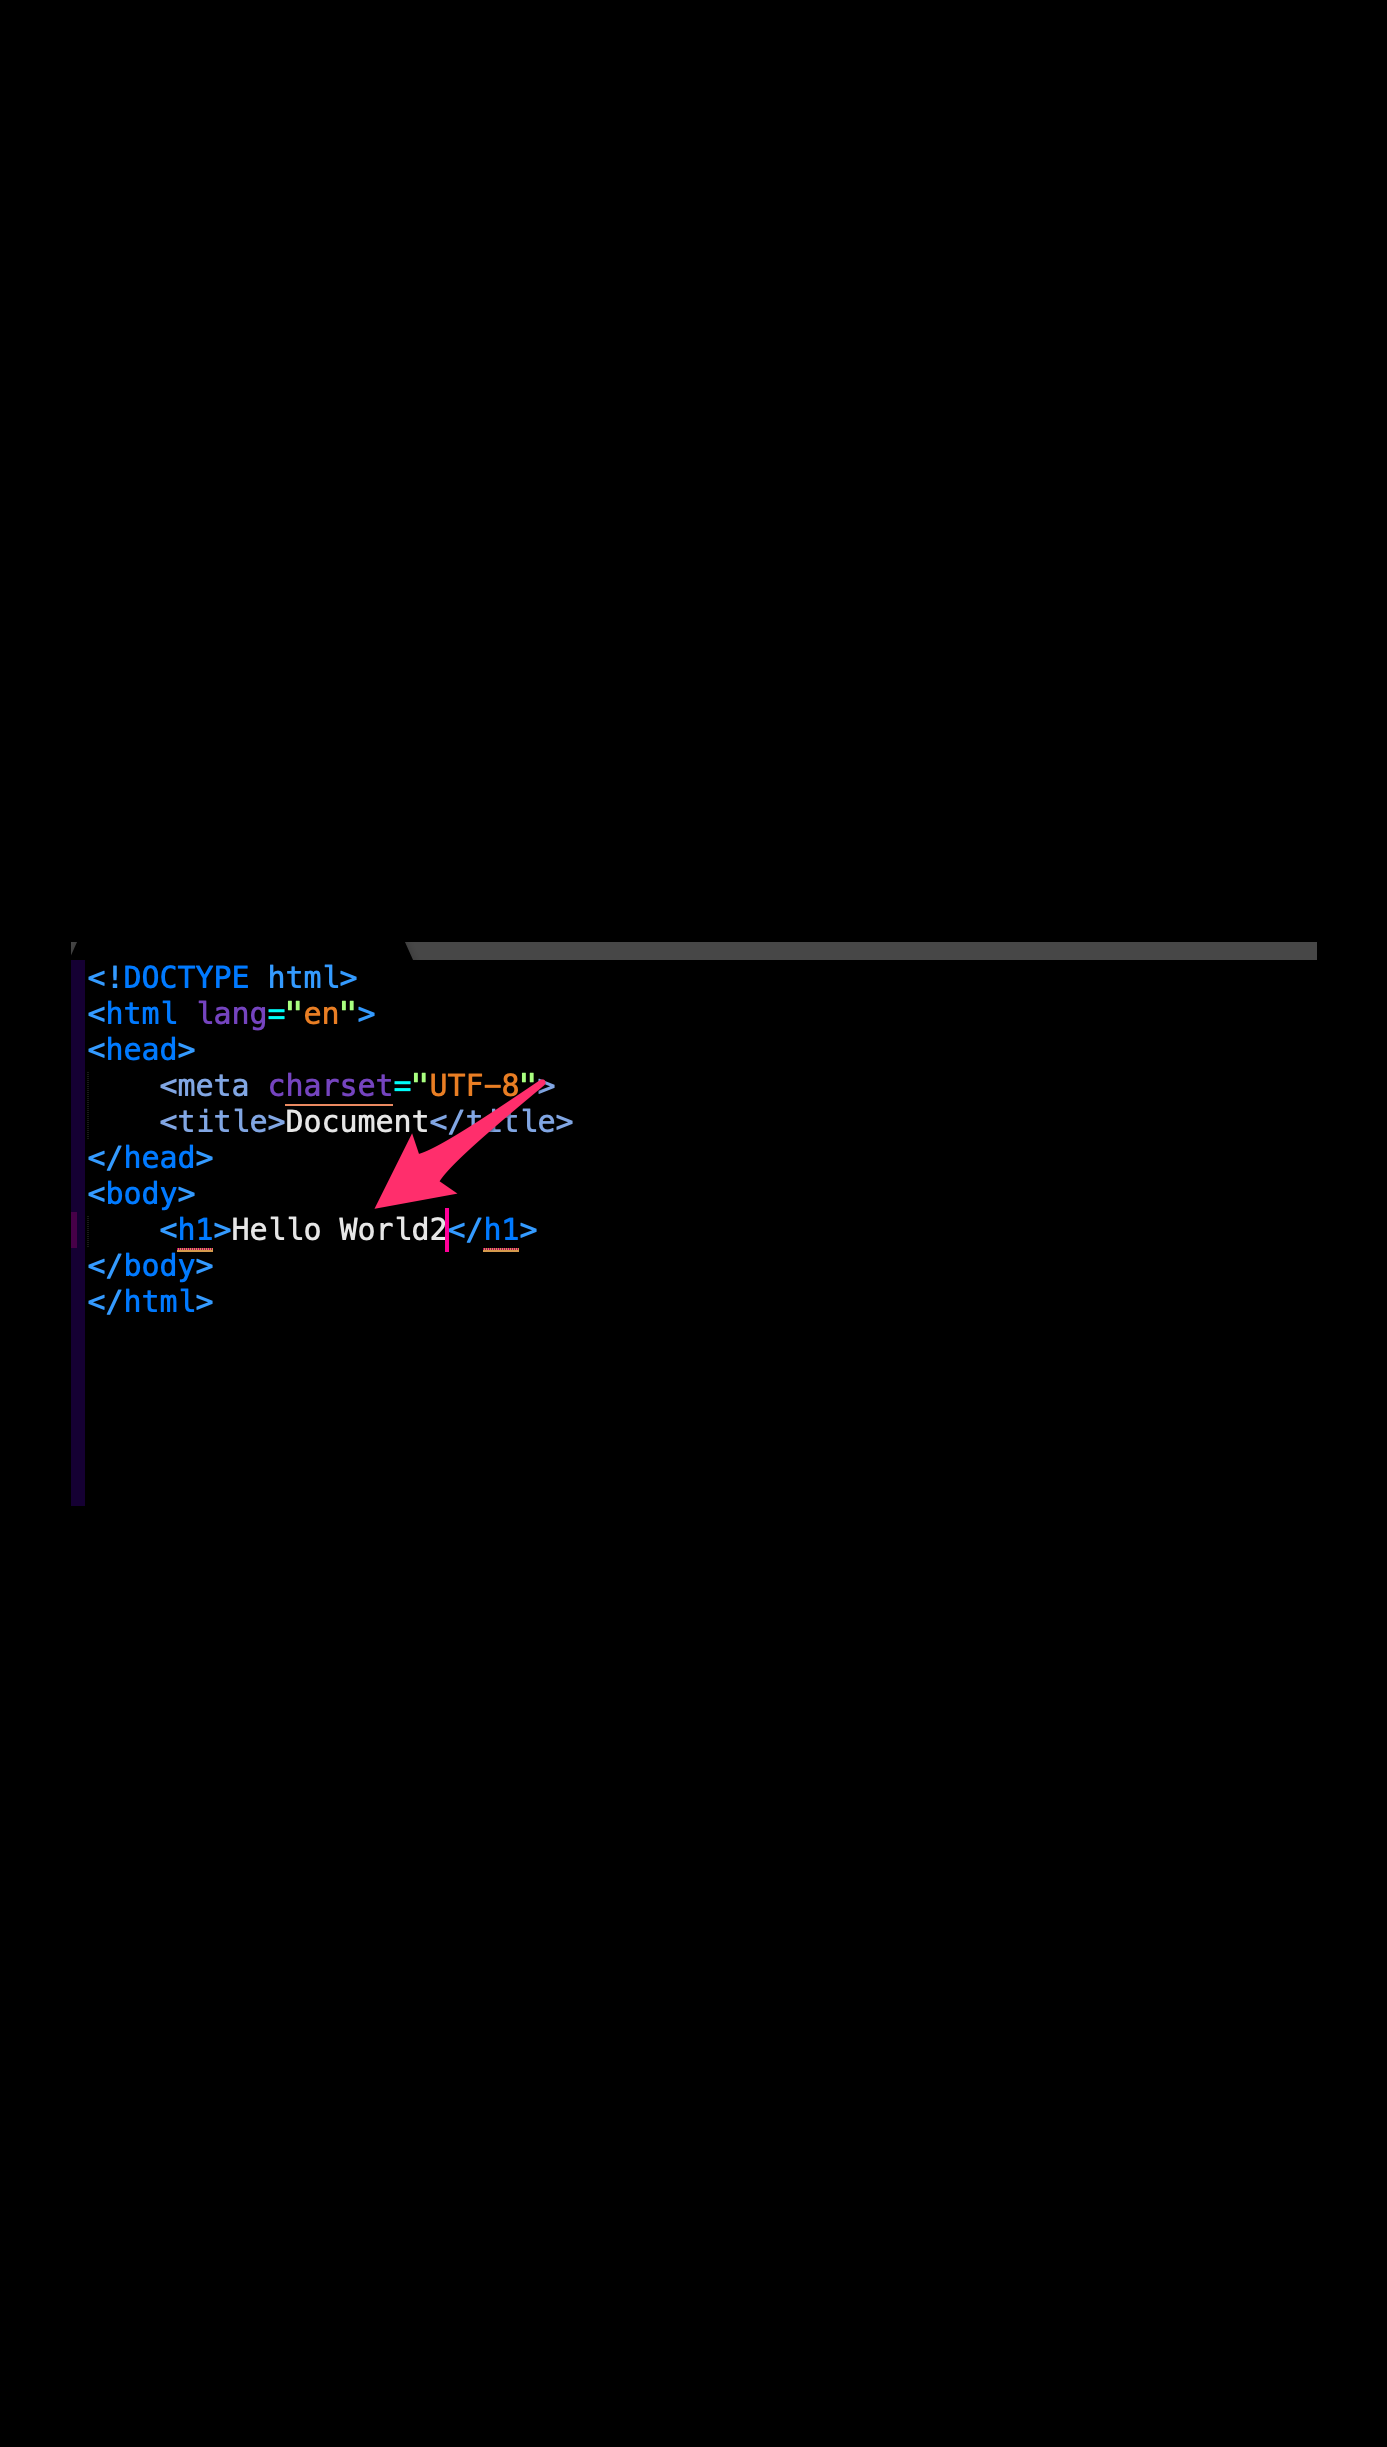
<?xml version="1.0" encoding="UTF-8"?>
<svg xmlns="http://www.w3.org/2000/svg" xmlns:xlink="http://www.w3.org/1999/xlink" width="1387" height="2447">
  <rect width="100%" height="100%" fill="#000000" />
  <image x="71" y="942" width="1246" height="564" xlink:href="image1.png" />
</svg>
